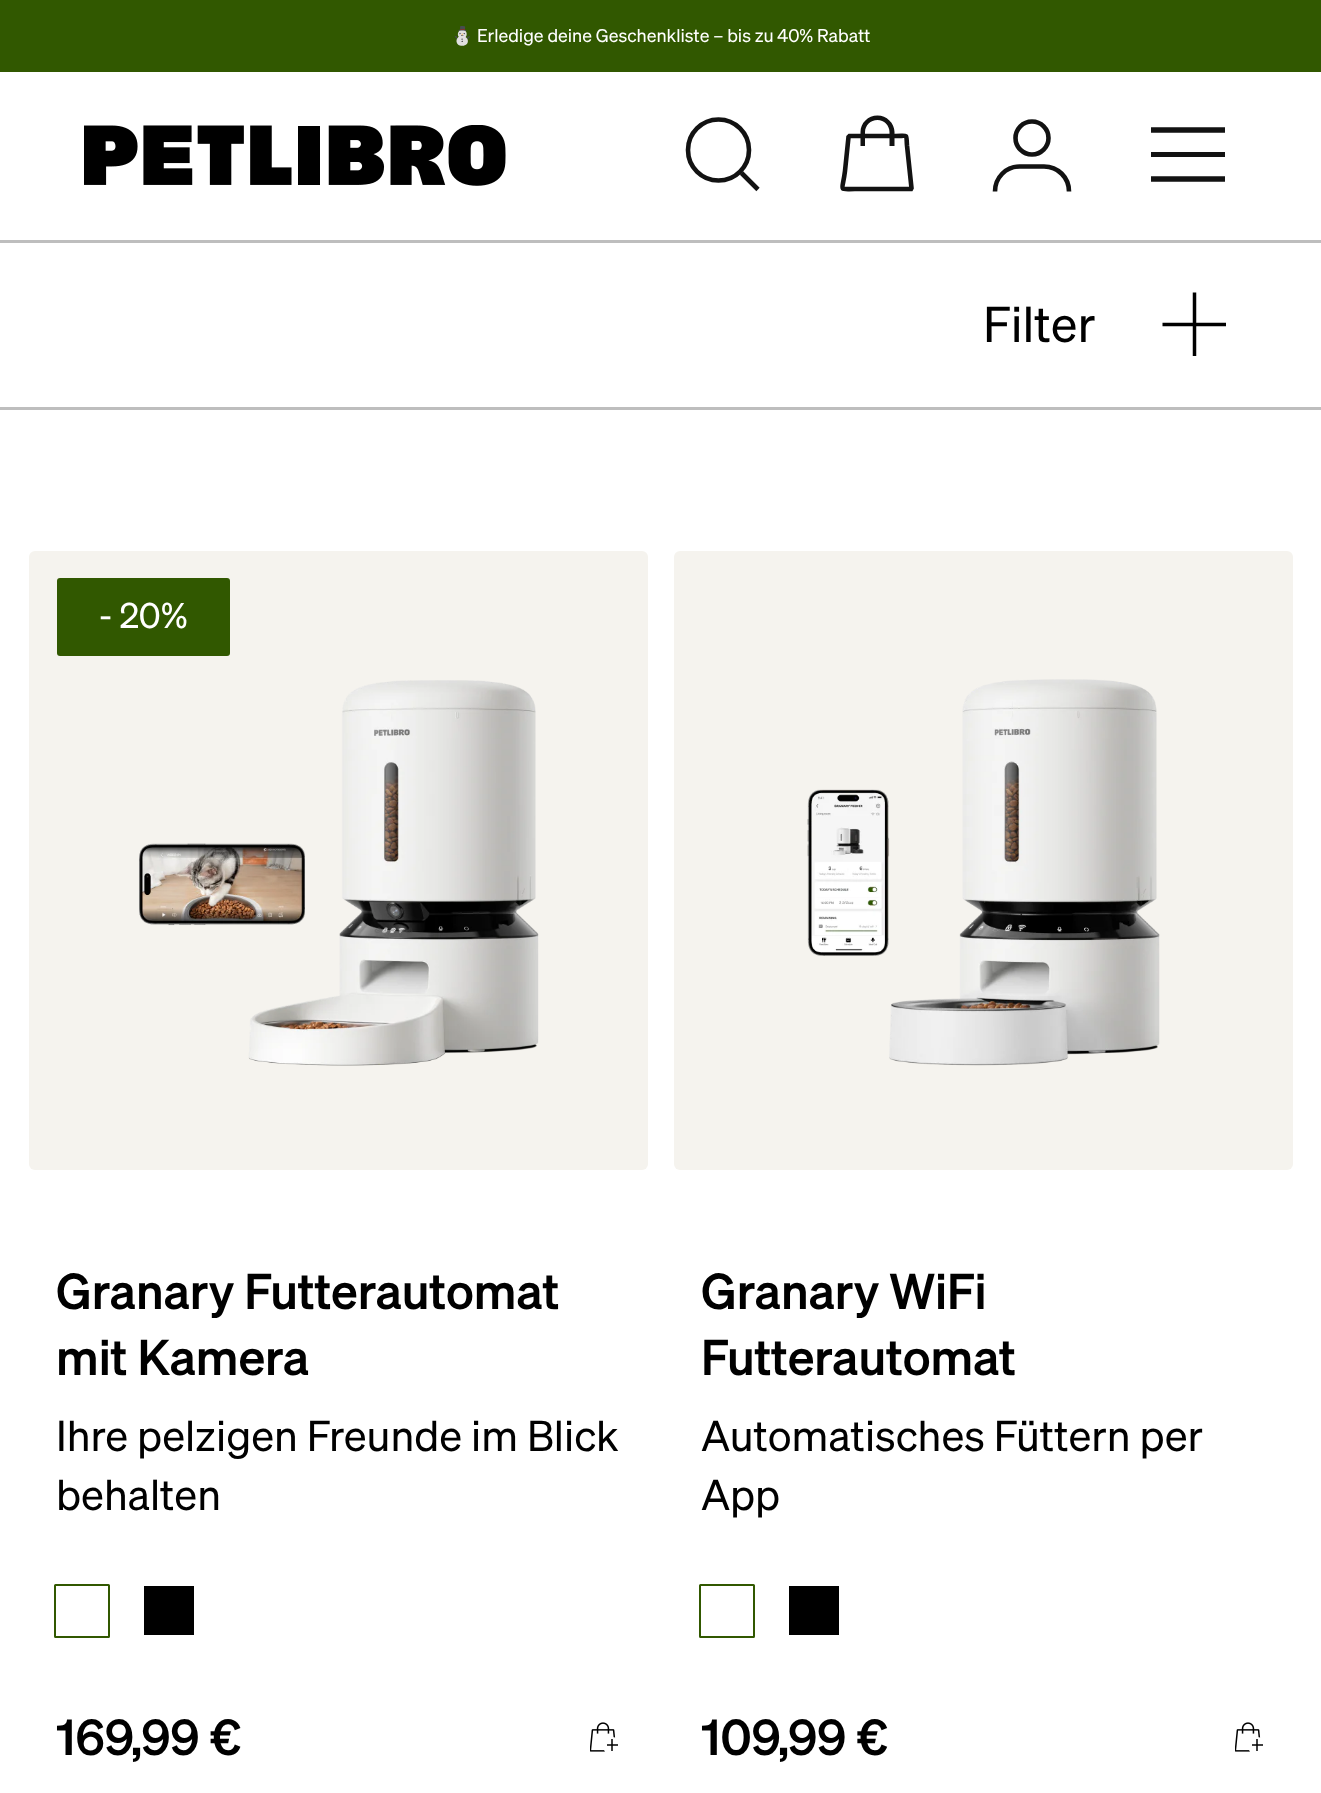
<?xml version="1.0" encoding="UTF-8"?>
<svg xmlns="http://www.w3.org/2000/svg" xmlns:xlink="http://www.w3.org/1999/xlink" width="1321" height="1793">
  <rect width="100%" height="100%" fill="#ffffff" />
  <rect width="1321" height="72" fill="#315800" />
  <image x="84" y="125" width="422" height="61" xlink:href="image1.png" />
  <circle cx="718.5" cy="150" r="30.5" fill="none" stroke="#121212" stroke-width="4.6" />
  <path d="M 741.5 173 l 16.5 16.5" fill="none" stroke="#121212" stroke-width="4.6" />
  <path d="M 849.5 136 h 46.5 c 12.5 0 10 -2.5 11 9.5 l 4.5 42.5 l -0.5 1 h -56 c -17.5 0 -12.5 3 -10 -18 l 3.5 -34 z" fill="none" stroke="#121212" stroke-width="4.6" />
  <path d="M 877.5 115.5 c 9 0 17 7.5 17 16.5 v 14 h -5 v -14 c 0 -6.5 -5.5 -12 -12 -12 c -7 0 -12.5 5.5 -12.5 12 v 14 h -4.5 v -14 c 0 -9 7.5 -16.5 17 -16.5 z" fill="#121212" />
  <circle cx="1032" cy="138" r="16.5" fill="none" stroke="#121212" stroke-width="4.6" />
  <path d="M 1069 191.5 c 0 -14 -11 -25 -25 -25 h -24.5 c -13.5 0 -24.5 11 -24.5 25" fill="none" stroke="#121212" stroke-width="4.6" />
  <path d="M 1151 130 h 74" fill="none" stroke="#121212" stroke-width="5.3" />
  <rect x="1151" y="152" width="74" height="5" fill="#121212" />
  <path d="M 1151 179 h 74" fill="none" stroke="#121212" stroke-width="5.3" />
  <rect y="240" width="1321" height="3" fill="#bebebe" />
  <rect y="407" width="1321" height="3" fill="#bebebe" />
  <path d="M 1162.5 324.5 h 63.5" fill="none" stroke="#000000" stroke-width="3.5" />
  <path d="M 1194.5 292.5 v 63.5" fill="none" stroke="#000000" stroke-width="3.5" />
  <rect x="29" y="551" width="619" height="619" rx="6" fill="#f5f3ee" />
  <rect x="57" y="578" width="173" height="78" rx="3" fill="#315800" />
  <image x="139" y="680" width="400" height="386" xlink:href="image2.png" />
  <rect x="55" y="1585" width="54" height="52" rx="0.5" fill="none" stroke="#315800" stroke-width="2" />
  <rect x="144" y="1586" width="50" height="49" fill="#000000" />
  <image x="590" y="1722" width="28" height="30" xlink:href="image3.png" />
  <rect x="674" y="551" width="619" height="619" rx="6" fill="#f5f3ee" />
  <image x="807" y="679" width="353" height="387" xlink:href="image4.png" />
  <rect x="700" y="1585" width="54" height="52" rx="0.5" fill="none" stroke="#315800" stroke-width="2" />
  <rect x="789" y="1586" width="50" height="49" fill="#000000" />
  <image x="1235" y="1722" width="28" height="30" xlink:href="image3.png" />
  <text x="451" y="42" style="font-family: Noto Color Emoji; font-size: 18px; fill: #ffffff">⛄</text>
  <text x="477" y="42" style="font-family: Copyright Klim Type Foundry; font-size: 18px; fill: #ffffff">Erledige deine Geschenkliste – bis zu 40% Rabatt</text>
  <text x="983" y="342" style="font-family: Copyright Klim Type Foundry; font-size: 49.25px; fill: #000000">Filter</text>
  <text x="99" y="628" style="font-family: Copyright Klim Type Foundry; font-size: 35px; fill: #ffffff">- 20%</text>
  <text x="56" y="1309" style="font-family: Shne; font-size: 49.25px; font-weight: 500; fill: #000000">Granary Futterautomat</text>
  <text x="56" y="1375" style="font-family: Shne; font-size: 49.25px; font-weight: 500; fill: #000000">mit Kamera</text>
  <text x="56" y="1451" style="font-family: Copyright Klim Type Foundry; font-size: 42.25px; fill: #000000">Ihre pelzigen Freunde im Blick</text>
  <text x="56" y="1510" style="font-family: Copyright Klim Type Foundry; font-size: 42.25px; fill: #000000">behalten</text>
  <text x="56" y="1755" style="font-family: Shne; font-size: 49.25px; font-weight: 500; fill: #000000">169,99 €</text>
  <text x="701" y="1309" style="font-family: Shne; font-size: 49.25px; font-weight: 500; fill: #000000">Granary WiFi</text>
  <text x="701" y="1375" style="font-family: Shne; font-size: 49.25px; font-weight: 500; fill: #000000">Futterautomat</text>
  <text x="701" y="1451" style="font-family: Copyright Klim Type Foundry; font-size: 42.25px; fill: #000000">Automatisches Füttern per</text>
  <text x="701" y="1510" style="font-family: Copyright Klim Type Foundry; font-size: 42.25px; fill: #000000">App</text>
  <text x="701" y="1755" style="font-family: Shne; font-size: 49.25px; font-weight: 500; fill: #000000">109,99 €</text>
</svg>
